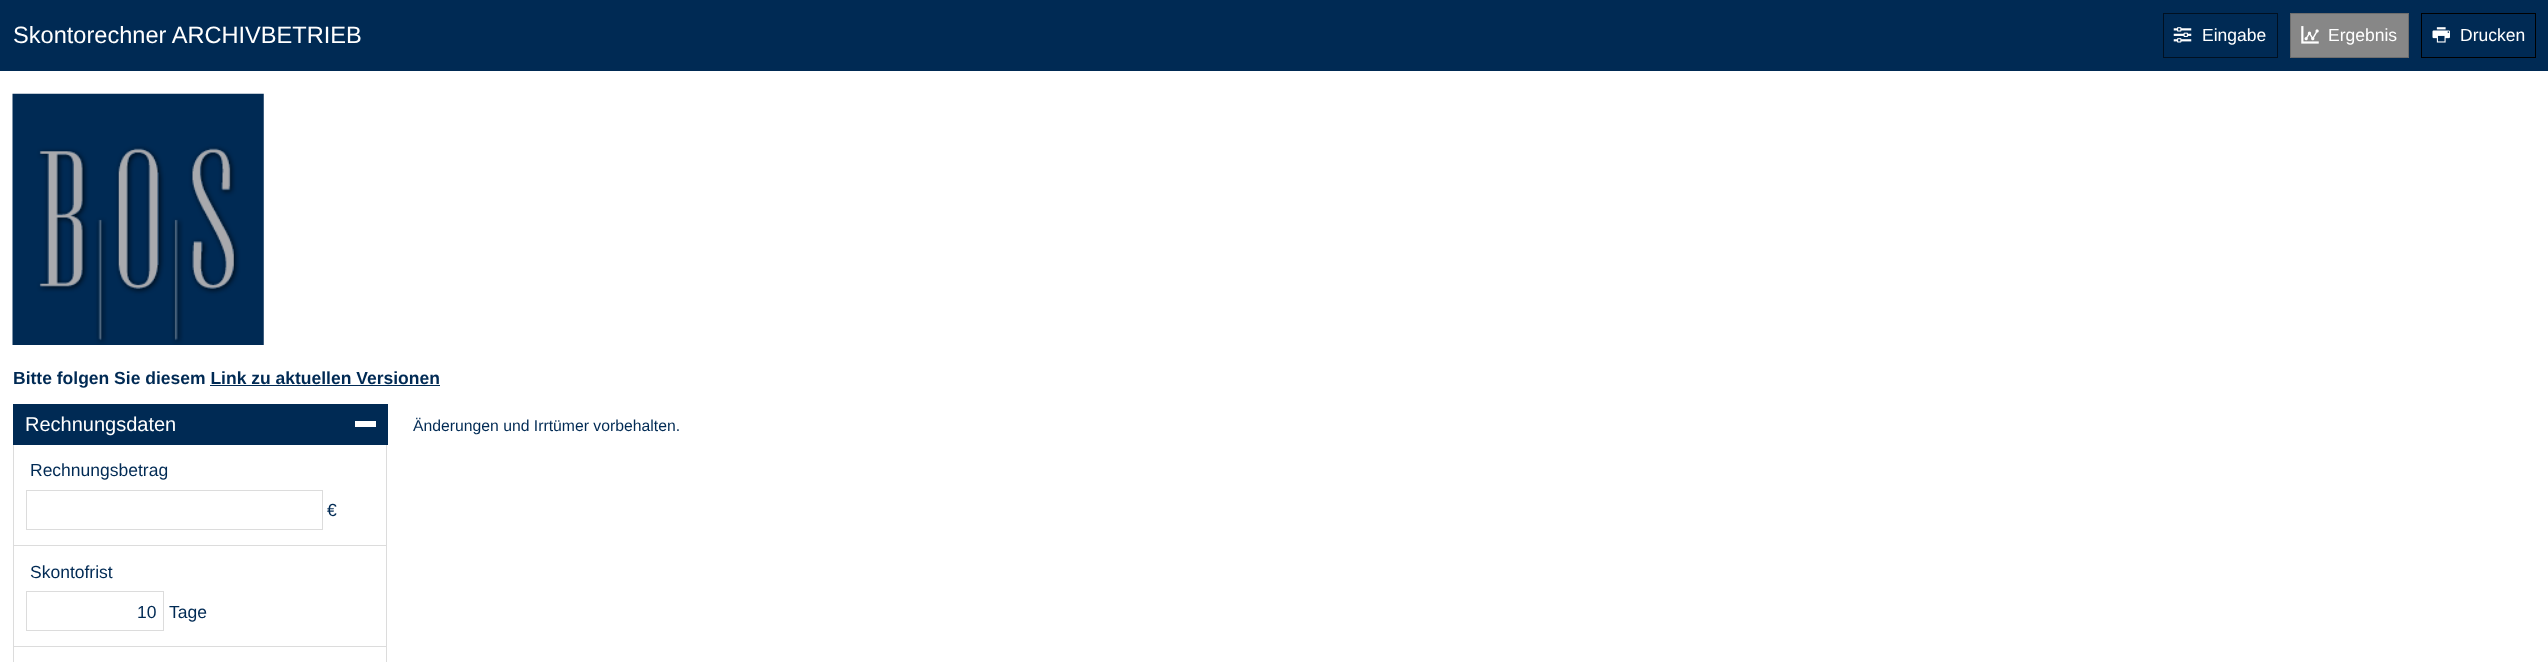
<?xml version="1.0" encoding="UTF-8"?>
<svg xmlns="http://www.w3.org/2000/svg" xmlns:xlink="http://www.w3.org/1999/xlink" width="2548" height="662">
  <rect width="100%" height="100%" fill="#ffffff" />
  <rect width="2548" height="71" fill="#002a54" />
  <rect x="2163.5" y="13.5" width="114" height="44" fill="none" stroke="#001021" />
  <image x="2173" y="27" width="19" height="16" xlink:href="image1.png" />
  <rect x="2290.5" y="13.5" width="118" height="44" fill="#878787" stroke="#6e6e6e" />
  <image x="2301" y="26" width="18" height="18" xlink:href="image2.png" />
  <rect x="2421.5" y="13.5" width="114" height="44" fill="none" stroke="#000000" />
  <image x="2432" y="27" width="18" height="16" xlink:href="image3.png" />
  <image x="12" y="93" width="252" height="252" xlink:href="image4.png" />
  <rect x="210" y="385" width="230" height="1" fill="#002a54" />
  <rect x="13" y="404" width="375" height="41" fill="#002a54" />
  <rect x="355" y="421" width="21" height="6" fill="#ffffff" />
  <rect x="386" y="445" width="1" height="217" fill="#dcdcdc" />
  <rect x="13" y="445" width="1" height="217" fill="#dcdcdc" />
  <rect x="14" y="545" width="372" height="1" fill="#dcdcdc" />
  <rect x="26.5" y="490.5" width="296" height="39" fill="none" stroke="#dcdcdc" />
  <rect x="14" y="646" width="372" height="1" fill="#dcdcdc" />
  <rect x="26.5" y="591.5" width="137" height="39" fill="none" stroke="#dcdcdc" />
  <text x="13" y="43" style="font-family: Liberation Sans; font-size: 23.6px; fill: #ffffff">Skontorechner ARCHIVBETRIEB</text>
  <text x="2202" y="41" style="font-family: Liberation Sans; font-size: 17.5px; fill: #ffffff">Eingabe</text>
  <text x="2328" y="41" style="font-family: Liberation Sans; font-size: 17.5px; fill: #ffffff">Ergebnis</text>
  <text x="2460" y="41" style="font-family: Liberation Sans; font-size: 17.5px; fill: #ffffff">Drucken</text>
  <text x="13" y="384" style="font-family: Liberation Sans; font-size: 17.5px; font-weight: bold; fill: #002a54">Bitte folgen Sie diesem Link zu aktuellen Versionen</text>
  <text x="25" y="431" style="font-family: Liberation Sans; font-size: 20px; fill: #ffffff">Rechnungsdaten</text>
  <text x="30" y="476" style="font-family: Liberation Sans; font-size: 17.5px; fill: #002a54">Rechnungsbetrag</text>
  <text x="327" y="516" style="font-family: Liberation Sans; font-size: 17.5px; fill: #002a54">€</text>
  <text x="30" y="578" style="font-family: Liberation Sans; font-size: 17.5px; fill: #002a54">Skontofrist</text>
  <text x="137" y="618" style="font-family: Liberation Sans; font-size: 17.5px; fill: #002a54">10</text>
  <text x="169" y="618" style="font-family: Liberation Sans; font-size: 17.5px; fill: #002a54">Tage</text>
  <text x="413" y="431" style="font-family: Liberation Sans; font-size: 15.75px; fill: #002a54">Änderungen und Irrtümer vorbehalten.</text>
</svg>
